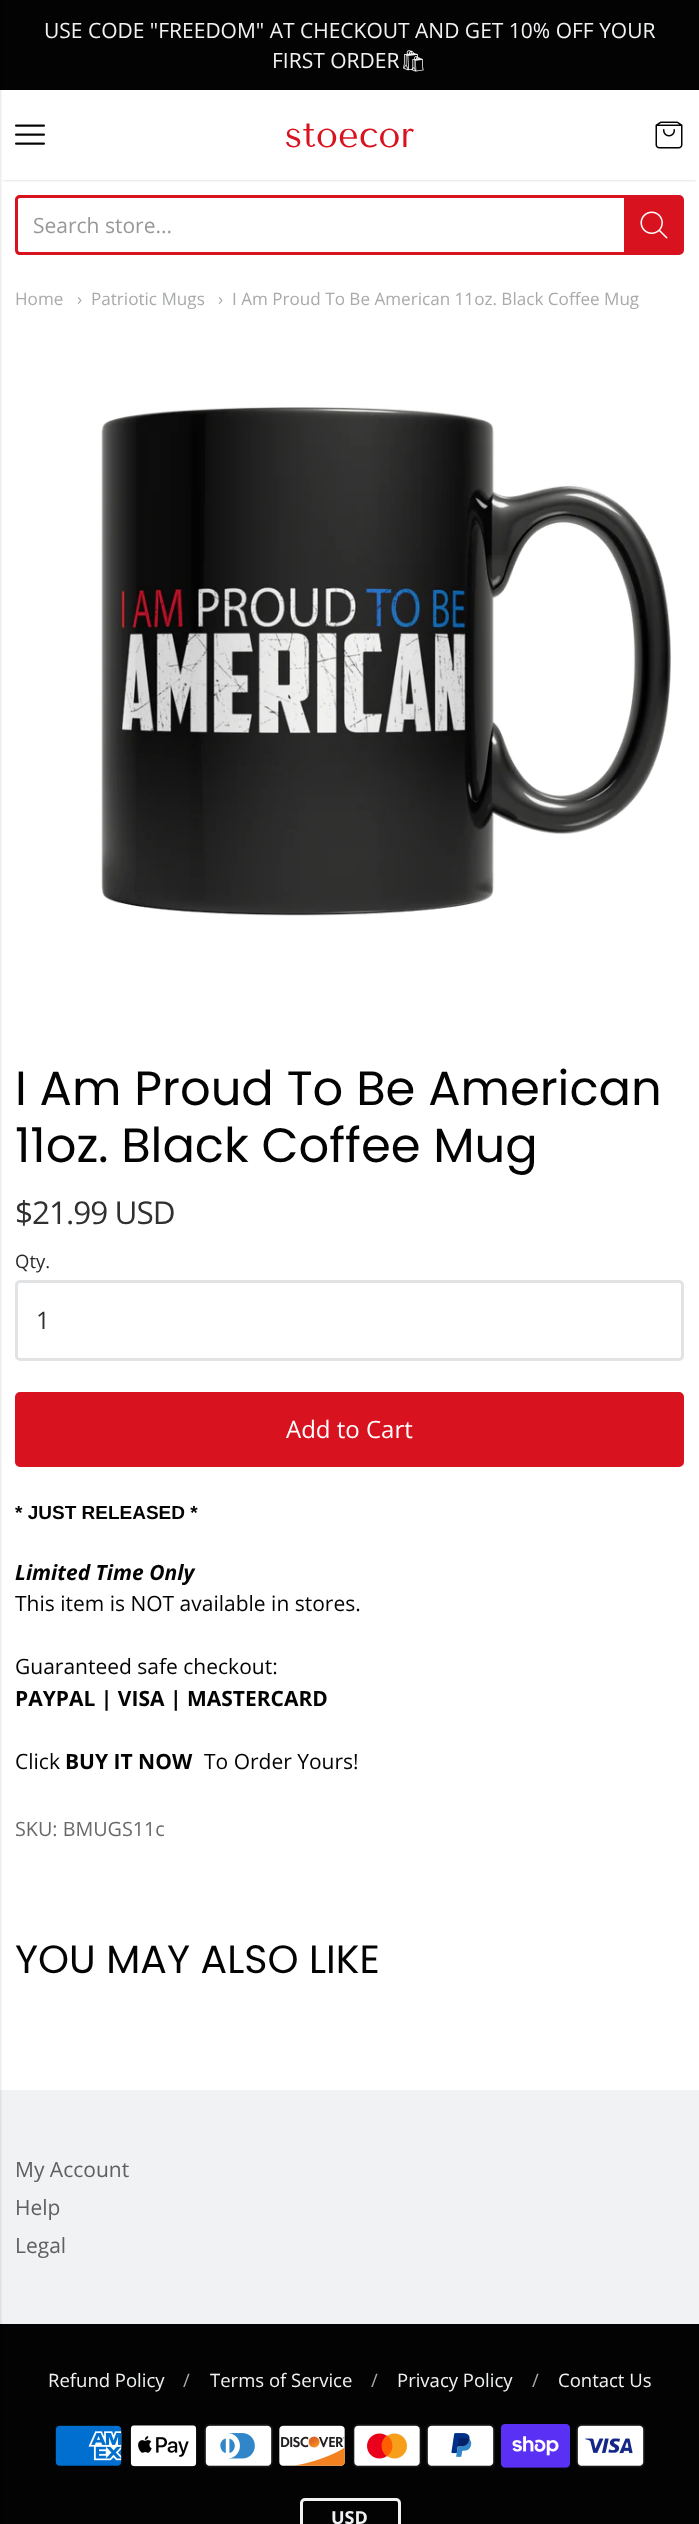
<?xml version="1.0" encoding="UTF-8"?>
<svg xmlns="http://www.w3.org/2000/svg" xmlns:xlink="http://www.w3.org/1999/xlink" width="699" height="2524">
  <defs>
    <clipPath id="clip1"><rect x="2" y="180" width="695" height="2" /></clipPath>
  </defs>
  <rect width="100%" height="100%" fill="#ffffff" />
  <rect width="699" height="90" fill="#030303" />
  <rect y="2090" width="699" height="234" fill="#f1f2f3" />
  <rect y="2324" width="699" height="200" fill="#030303" />
  <rect x="-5" y="3" width="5" height="2519" fill="#000000" fill-opacity="0.2" filter="blur(1.5px)" />
  <g clip-path="url(#clip1)">
    <rect x="3" y="96" width="693" height="84" fill="#000000" fill-opacity="0.2" filter="blur(1.5px)" />
  </g>
  <image x="15" y="124" width="30" height="21" xlink:href="image1.png" />
  <image x="655" y="121" width="28" height="28" xlink:href="image2.png" />
  <path d="M 20 195 h 604 v 60 h -604 c -3 0 -5 -2 -5 -5 v -50 c 0 -3 2 -5 5 -5 z m 0 3 h 604 v 54 h -604 c -1 0 -2 -1 -2 -2 v -51 z" fill="#d9121f" fill-rule="evenodd" />
  <path d="M 625.5 196.5 h 53.5 c 2 0 3.5 1.5 3.5 3.5 v 50 c 0 2 -1.5 3.5 -3.5 3.5 h -53.5 z" fill="#d9121f" stroke="#d9121f" stroke-width="3" />
  <image x="640" y="211" width="28" height="28" xlink:href="image3.png" />
  <image x="101" y="407" width="570" height="509" xlink:href="image4.png" />
  <rect x="16.5" y="1281.5" width="666" height="78" rx="3.5" fill="none" stroke="#e1e3e4" stroke-width="3" />
  <rect x="16.5" y="1393.5" width="666" height="72" rx="3.5" fill="#d9121f" stroke="#d9121f" stroke-width="3" />
  <image x="55" y="2425" width="67" height="41" xlink:href="image5.png" />
  <image x="130" y="2425" width="67" height="42" xlink:href="image6.png" />
  <image x="204" y="2424" width="69" height="44" xlink:href="image7.png" />
  <image x="279" y="2425" width="66" height="41" xlink:href="image8.png" />
  <image x="353" y="2424" width="69" height="44" xlink:href="image9.png" />
  <image x="426" y="2424" width="69" height="44" xlink:href="image10.png" />
  <image x="501" y="2424" width="69" height="44" xlink:href="image11.png" />
  <image x="576" y="2424" width="69" height="44" xlink:href="image12.png" />
  <rect x="301.5" y="2499.5" width="98" height="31" rx="3.5" fill="none" stroke="#f1f2f3" stroke-width="3" />
  <text x="44" y="38" style="font-family: Open Sans; font-size: 21px; fill: #f1f2f3">USE CODE "FREEDOM" AT CHECKOUT AND GET 10% OFF YOUR</text>
  <text x="272" y="68" style="font-family: Open Sans; font-size: 21px; fill: #f1f2f3">FIRST ORDER</text>
  <text x="400" y="68" style="font-family: Noto Emoji; font-size: 21px; fill: #f1f2f3">🛍</text>
  <text x="285" y="147" style="font-family: Tenor Sans; font-size: 36px; fill: #d9121f">stoecor</text>
  <text x="33" y="233" style="font-family: Open Sans; font-size: 21px; fill: #989898">Search store...</text>
  <text x="15" y="305" style="font-family: Open Sans; font-size: 17.1px; fill: #a9aaaa">Home</text>
  <text x="77" y="305" style="font-family: Open Sans; font-size: 17.1px; fill: #a9aaaa">›</text>
  <text x="91" y="305" style="font-family: Open Sans; font-size: 17.1px; fill: #a9aaaa">Patriotic Mugs</text>
  <text x="218" y="305" style="font-family: Open Sans; font-size: 17.1px; fill: #a9aaaa">›</text>
  <text x="232" y="305" style="font-family: Open Sans; font-size: 17.1px; fill: #a9aaaa">I Am Proud To Be American 11oz. Black Coffee Mug</text>
  <text x="15" y="1105" style="font-family: Poppins; font-size: 48px; fill: #030303">I Am Proud To Be American</text>
  <text x="15" y="1162" style="font-family: Poppins; font-size: 48px; fill: #030303">11oz. Black Coffee Mug</text>
  <text x="15" y="1224" style="font-family: Open Sans; font-size: 31.5px; letter-spacing: -1px; fill: #303030">$21.99 USD</text>
  <text x="15" y="1268" style="font-family: Open Sans; font-size: 18.5px; fill: #2a2b2b">Qty.</text>
  <text x="36" y="1329" style="font-family: Open Sans; font-size: 24px; fill: #303030">1</text>
  <text x="286" y="1438" style="font-family: Open Sans; font-size: 24px; fill: #ffffff">Add to Cart</text>
  <text x="15" y="1519" style="font-family: Liberation Sans; font-size: 19px; font-weight: bold; fill: #030303">* JUST RELEASED *</text>
  <text x="15" y="1580" style="font-family: Open Sans; font-size: 21px; font-weight: bold; font-style: italic; fill: #030303">Limited Time Only</text>
  <text x="15" y="1611" style="font-family: Open Sans; font-size: 21px; fill: #030303">This item is NOT available in stores.</text>
  <text x="15" y="1674" style="font-family: Open Sans; font-size: 21px; fill: #030303">Guaranteed safe checkout:</text>
  <text x="15" y="1706" style="font-family: Open Sans; font-size: 21px; font-weight: bold; fill: #030303">PAYPAL | VISA | MASTERCARD</text>
  <text x="15" y="1769" style="font-family: Open Sans; font-size: 21px; fill: #030303">Click</text>
  <text x="65" y="1769" style="font-family: Open Sans; font-size: 21px; font-weight: bold; fill: #030303">BUY IT NOW</text>
  <text x="204" y="1769" style="font-family: Open Sans; font-size: 21px; fill: #030303">To Order Yours!</text>
  <text x="15" y="1836" style="font-family: Open Sans; font-size: 19.75px; fill: #696969">SKU: BMUGS11c</text>
  <text x="15" y="1973" style="font-family: Poppins; font-size: 39.5px; fill: #030303">YOU MAY ALSO LIKE</text>
  <text x="15" y="2177" style="font-family: Open Sans; font-size: 21px; fill: #606060">My Account</text>
  <text x="15" y="2215" style="font-family: Open Sans; font-size: 21px; fill: #606060">Help</text>
  <text x="15" y="2253" style="font-family: Open Sans; font-size: 21px; fill: #606060">Legal</text>
  <text x="48" y="2387" style="font-family: Open Sans; font-size: 18.5px; fill: #f1f2f3">Refund Policy</text>
  <text x="183" y="2387" style="font-family: Open Sans; font-size: 18.5px; fill: #a9aaaa">/</text>
  <text x="210" y="2387" style="font-family: Open Sans; font-size: 18.5px; fill: #f1f2f3">Terms of Service</text>
  <text x="371" y="2387" style="font-family: Open Sans; font-size: 18.5px; fill: #a9aaaa">/</text>
  <text x="397" y="2387" style="font-family: Open Sans; font-size: 18.5px; fill: #f1f2f3">Privacy Policy</text>
  <text x="532" y="2387" style="font-family: Open Sans; font-size: 18.5px; fill: #a9aaaa">/</text>
  <text x="558" y="2387" style="font-family: Open Sans; font-size: 18.5px; fill: #f1f2f3">Contact Us</text>
  <text x="331" y="2524" style="font-family: Open Sans; font-size: 18px; font-weight: bold; fill: #f1f2f3">USD</text>
</svg>
